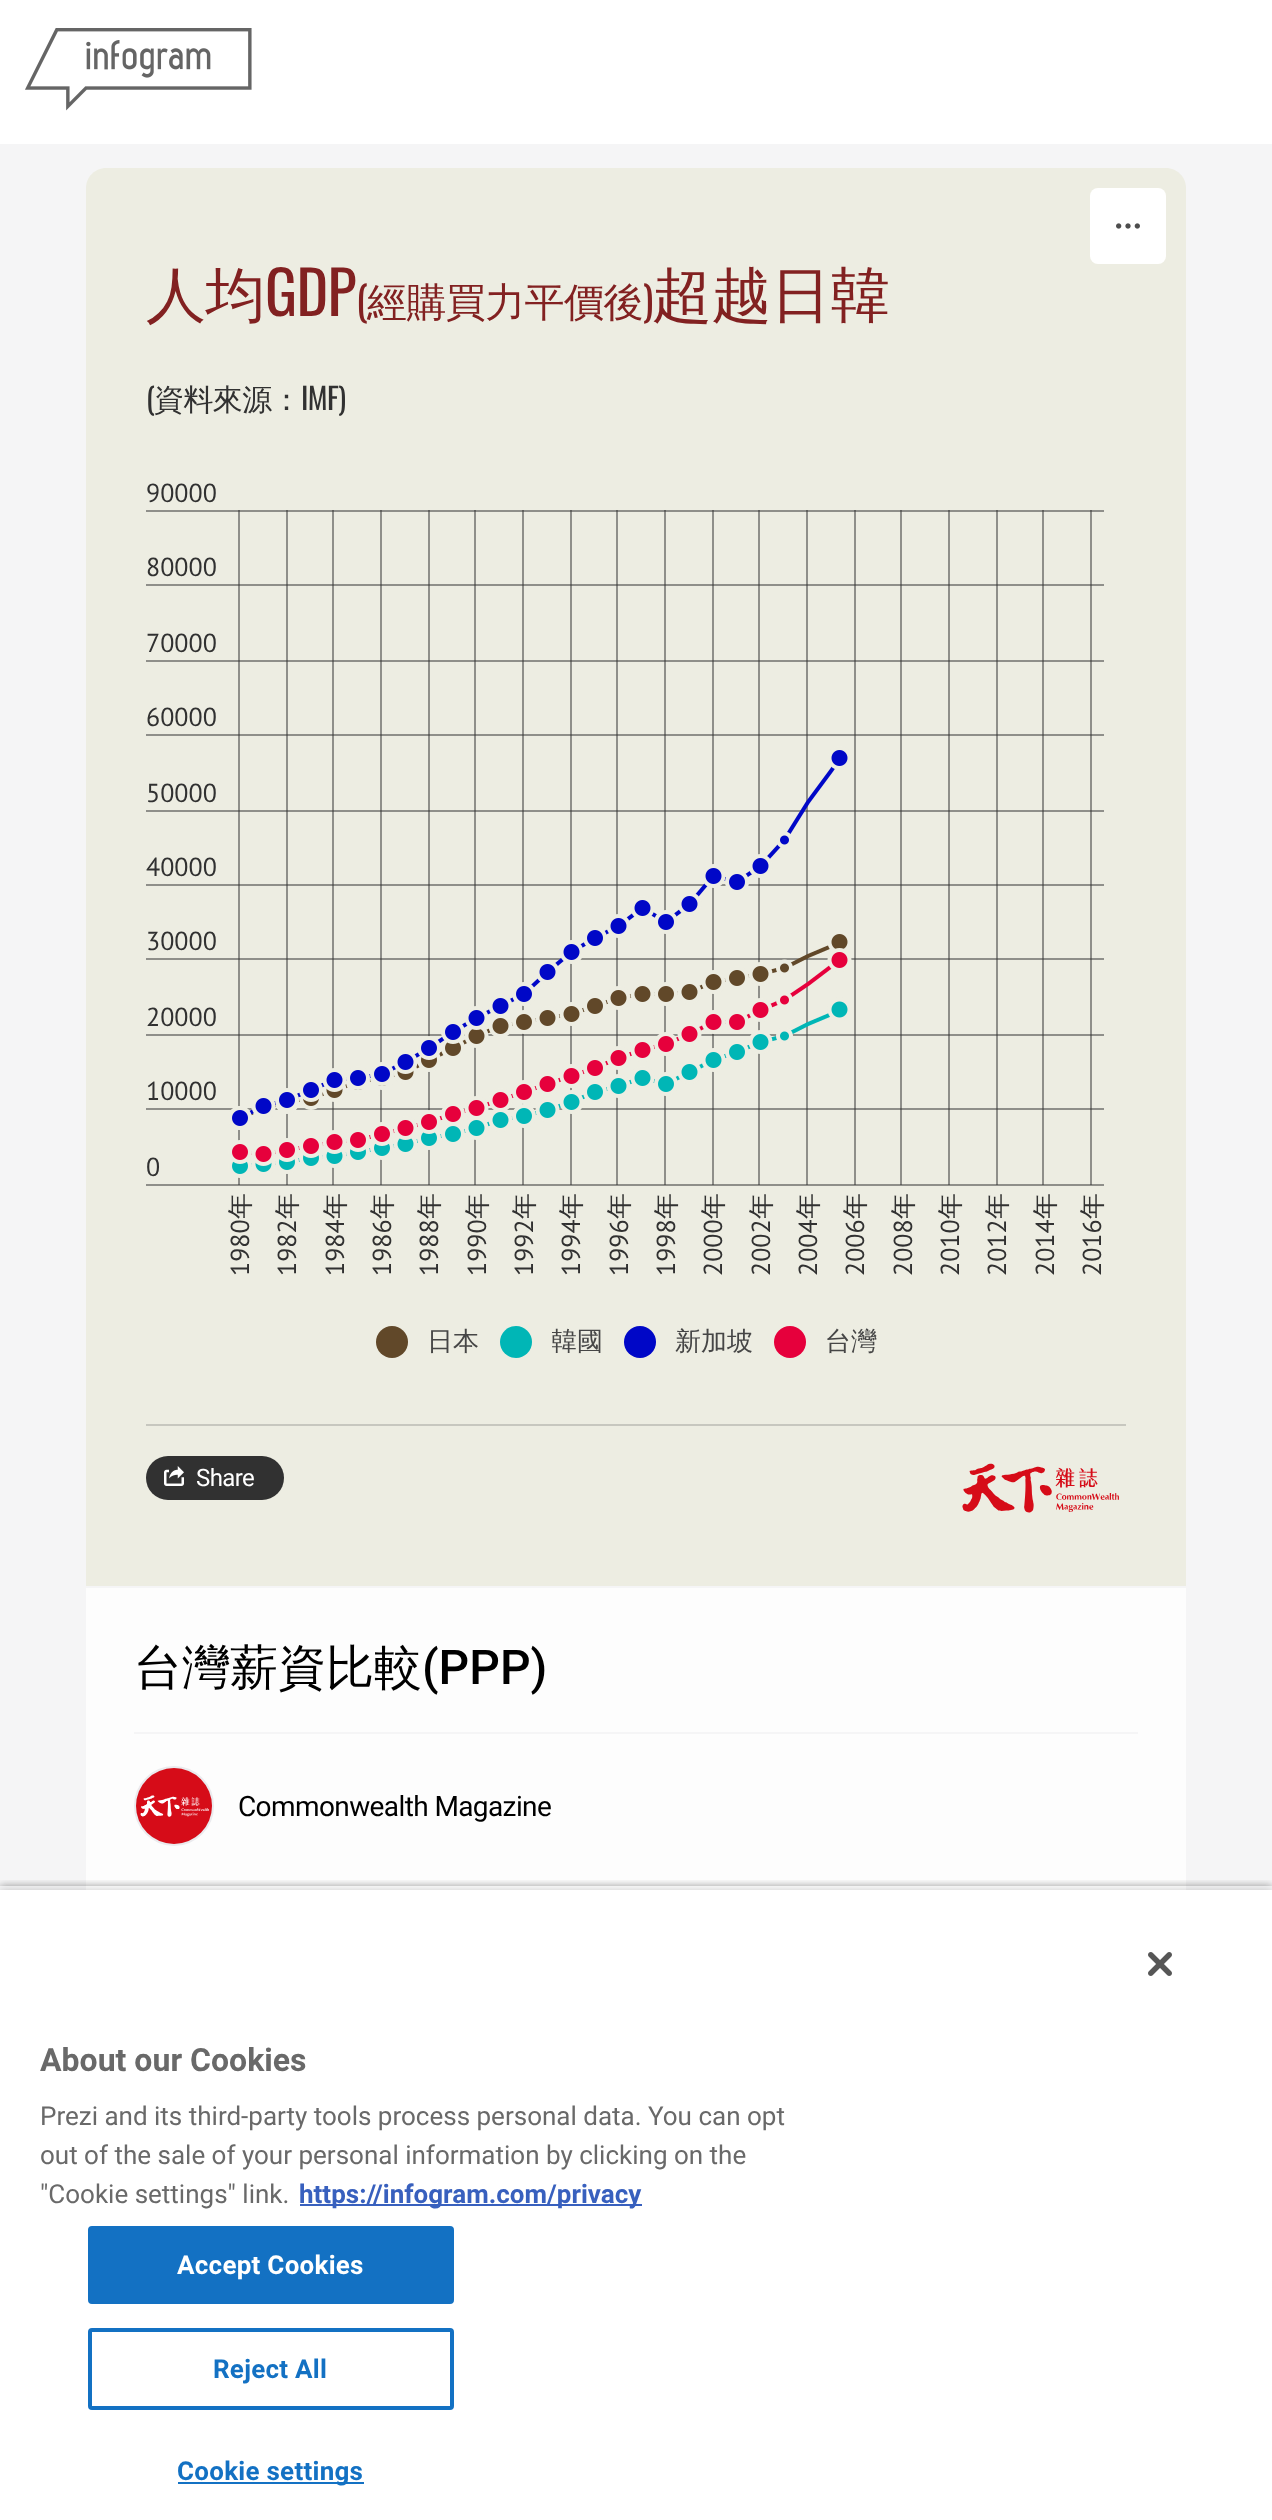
<?xml version="1.0" encoding="UTF-8"?>
<svg xmlns="http://www.w3.org/2000/svg" xmlns:xlink="http://www.w3.org/1999/xlink" width="1272" height="2520">
  <defs>
    <clipPath id="clip1"><rect x="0" y="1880" width="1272" height="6" /></clipPath>
    <clipPath id="clip2"><rect x="552" y="1326" width="52" height="32" /></clipPath>
  </defs>
  <rect width="100%" height="100%" fill="#f5f5f6" />
  <rect width="1272" height="144" fill="#ffffff" />
  <image x="25" y="28" width="227" height="83" xlink:href="image1.png" />
  <path d="M 106 168 h 1060 c 11 0 20 9 20 20 v 1398 h -1100 v -1398 c 0 -11 9 -20 20 -20 z" fill="#edede2" />
  <rect x="1090" y="188" width="76" height="76" rx="8" fill="#ffffff" />
  <image x="1116" y="223" width="24" height="6" xlink:href="image2.png" />
  <image x="146" y="510" width="958" height="676" xlink:href="image3.png" />
  <circle cx="392" cy="1342" r="16" fill="#614829" />
  <circle cx="516" cy="1342" r="16" fill="#00b6b6" />
  <circle cx="640" cy="1342" r="16" fill="#0007c7" />
  <circle cx="790" cy="1342" r="16" fill="#e6003c" />
  <rect x="146" y="1424" width="980" height="2" fill="#c7c7bf" />
  <rect x="146" y="1456" width="138" height="44" rx="22" fill="#313131" />
  <image x="164" y="1466" width="20" height="20" xlink:href="image4.png" />
  <image x="962" y="1463" width="157" height="50" xlink:href="image5.png" />
  <rect x="86" y="1588" width="1100" height="302" fill="#fdfdfd" />
  <rect x="134" y="1732" width="1004" height="2" fill="#f5f5f6" />
  <circle cx="174" cy="1806" r="39" fill="#e1e1e1" stroke="#ebebee" stroke-width="2" />
  <image x="136" y="1768" width="76" height="76" xlink:href="image6.png" />
  <g clip-path="url(#clip1)">
    <rect y="1886" width="1272" height="634" fill="#000000" fill-opacity="0.35" filter="blur(4px)" />
  </g>
  <rect y="1890" width="1272" height="630" fill="#000000" fill-opacity="0.2" filter="blur(4px)" />
  <rect y="1890" width="1272" height="630" fill="#ffffff" />
  <image x="1148" y="1952" width="24" height="24" xlink:href="image7.png" />
  <rect x="300" y="2204" width="342" height="2" fill="#3860be" />
  <rect x="89" y="2227" width="364" height="76" rx="3" fill="#1371c3" stroke="#1371c3" stroke-width="2" />
  <rect x="90" y="2330" width="362" height="78" rx="2" fill="none" stroke="#1371c3" stroke-width="4" />
  <rect x="178" y="2482" width="186" height="2" fill="#1371c3" />
  <text x="146" y="316" style="font-family: WenQuanYi Zen Hei; font-size: 60px; font-weight: 500; letter-spacing: -0.6px; fill: #822121">人均</text>
  <text x="265" y="316" style="font-family: Oswald; font-size: 60px; letter-spacing: -0.6px; fill: #822121">GDP</text>
  <text x="356" y="316" style="font-family: Oswald; font-size: 40px; letter-spacing: -0.6px; fill: #822121">(</text>
  <text x="367" y="316" style="font-family: WenQuanYi Zen Hei; font-size: 40px; font-weight: 500; letter-spacing: -0.6px; fill: #822121">經購買力平價後</text>
  <text x="643" y="316" style="font-family: Oswald; font-size: 40px; letter-spacing: -0.6px; fill: #822121">)</text>
  <text x="652" y="316" style="font-family: WenQuanYi Zen Hei; font-size: 60px; font-weight: 500; letter-spacing: -0.6px; fill: #822121">超越日韓</text>
  <text x="146" y="410" style="font-family: Oswald; font-size: 30px; letter-spacing: -0.6px; fill: #313131">(</text>
  <text x="154" y="410" style="font-family: WenQuanYi Zen Hei; font-size: 30px; font-weight: 500; letter-spacing: -0.6px; fill: #313131">資料來源：</text>
  <text x="301" y="410" style="font-family: Oswald; font-size: 30px; letter-spacing: -0.6px; fill: #313131">IMF)</text>
  <text x="146" y="502" style="font-family: PT Sans; font-size: 26px; fill: #313131">90000</text>
  <text x="146" y="576" style="font-family: PT Sans; font-size: 26px; fill: #313131">80000</text>
  <text x="146" y="652" style="font-family: PT Sans; font-size: 26px; fill: #313131">70000</text>
  <text x="146" y="726" style="font-family: PT Sans; font-size: 26px; fill: #313131">60000</text>
  <text x="146" y="802" style="font-family: PT Sans; font-size: 26px; fill: #313131">50000</text>
  <text x="146" y="876" style="font-family: PT Sans; font-size: 26px; fill: #313131">40000</text>
  <text x="146" y="950" style="font-family: PT Sans; font-size: 26px; fill: #313131">30000</text>
  <text x="146" y="1026" style="font-family: PT Sans; font-size: 26px; fill: #313131">20000</text>
  <text x="146" y="1100" style="font-family: PT Sans; font-size: 26px; fill: #313131">10000</text>
  <text x="146" y="1176" style="font-family: PT Sans; font-size: 26px; fill: #313131">0</text>
  <text x="249" y="1219" transform="rotate(-90 249 1219)" style="font-family: WenQuanYi Zen Hei; font-size: 26px; font-weight: 500; fill: #313131">年</text>
  <text x="296" y="1219" transform="rotate(-90 296 1219)" style="font-family: WenQuanYi Zen Hei; font-size: 26px; font-weight: 500; fill: #313131">年</text>
  <text x="344" y="1219" transform="rotate(-90 344 1219)" style="font-family: WenQuanYi Zen Hei; font-size: 26px; font-weight: 500; fill: #313131">年</text>
  <text x="391" y="1219" transform="rotate(-90 391 1219)" style="font-family: WenQuanYi Zen Hei; font-size: 26px; font-weight: 500; fill: #313131">年</text>
  <text x="438" y="1219" transform="rotate(-90 438 1219)" style="font-family: WenQuanYi Zen Hei; font-size: 26px; font-weight: 500; fill: #313131">年</text>
  <text x="486" y="1219" transform="rotate(-90 486 1219)" style="font-family: WenQuanYi Zen Hei; font-size: 26px; font-weight: 500; fill: #313131">年</text>
  <text x="533" y="1219" transform="rotate(-90 533 1219)" style="font-family: WenQuanYi Zen Hei; font-size: 26px; font-weight: 500; fill: #313131">年</text>
  <text x="580" y="1219" transform="rotate(-90 580 1219)" style="font-family: WenQuanYi Zen Hei; font-size: 26px; font-weight: 500; fill: #313131">年</text>
  <text x="628" y="1219" transform="rotate(-90 628 1219)" style="font-family: WenQuanYi Zen Hei; font-size: 26px; font-weight: 500; fill: #313131">年</text>
  <text x="675" y="1219" transform="rotate(-90 675 1219)" style="font-family: WenQuanYi Zen Hei; font-size: 26px; font-weight: 500; fill: #313131">年</text>
  <text x="722" y="1219" transform="rotate(-90 722 1219)" style="font-family: WenQuanYi Zen Hei; font-size: 26px; font-weight: 500; fill: #313131">年</text>
  <text x="770" y="1219" transform="rotate(-90 770 1219)" style="font-family: WenQuanYi Zen Hei; font-size: 26px; font-weight: 500; fill: #313131">年</text>
  <text x="817" y="1219" transform="rotate(-90 817 1219)" style="font-family: WenQuanYi Zen Hei; font-size: 26px; font-weight: 500; fill: #313131">年</text>
  <text x="864" y="1219" transform="rotate(-90 864 1219)" style="font-family: WenQuanYi Zen Hei; font-size: 26px; font-weight: 500; fill: #313131">年</text>
  <text x="912" y="1219" transform="rotate(-90 912 1219)" style="font-family: WenQuanYi Zen Hei; font-size: 26px; font-weight: 500; fill: #313131">年</text>
  <text x="959" y="1219" transform="rotate(-90 959 1219)" style="font-family: WenQuanYi Zen Hei; font-size: 26px; font-weight: 500; fill: #313131">年</text>
  <text x="1006" y="1219" transform="rotate(-90 1006 1219)" style="font-family: WenQuanYi Zen Hei; font-size: 26px; font-weight: 500; fill: #313131">年</text>
  <text x="1054" y="1219" transform="rotate(-90 1054 1219)" style="font-family: WenQuanYi Zen Hei; font-size: 26px; font-weight: 500; fill: #313131">年</text>
  <text x="1101" y="1219" transform="rotate(-90 1101 1219)" style="font-family: WenQuanYi Zen Hei; font-size: 26px; font-weight: 500; fill: #313131">年</text>
  <text x="249" y="1276" transform="rotate(-90 249 1276)" style="font-family: PT Sans; font-size: 26px; fill: #313131">1980</text>
  <text x="296" y="1276" transform="rotate(-90 296 1276)" style="font-family: PT Sans; font-size: 26px; fill: #313131">1982</text>
  <text x="344" y="1276" transform="rotate(-90 344 1276)" style="font-family: PT Sans; font-size: 26px; fill: #313131">1984</text>
  <text x="391" y="1276" transform="rotate(-90 391 1276)" style="font-family: PT Sans; font-size: 26px; fill: #313131">1986</text>
  <text x="438" y="1276" transform="rotate(-90 438 1276)" style="font-family: PT Sans; font-size: 26px; fill: #313131">1988</text>
  <text x="486" y="1276" transform="rotate(-90 486 1276)" style="font-family: PT Sans; font-size: 26px; fill: #313131">1990</text>
  <text x="533" y="1276" transform="rotate(-90 533 1276)" style="font-family: PT Sans; font-size: 26px; fill: #313131">1992</text>
  <text x="580" y="1276" transform="rotate(-90 580 1276)" style="font-family: PT Sans; font-size: 26px; fill: #313131">1994</text>
  <text x="628" y="1276" transform="rotate(-90 628 1276)" style="font-family: PT Sans; font-size: 26px; fill: #313131">1996</text>
  <text x="675" y="1276" transform="rotate(-90 675 1276)" style="font-family: PT Sans; font-size: 26px; fill: #313131">1998</text>
  <text x="722" y="1276" transform="rotate(-90 722 1276)" style="font-family: PT Sans; font-size: 26px; fill: #313131">2000</text>
  <text x="770" y="1276" transform="rotate(-90 770 1276)" style="font-family: PT Sans; font-size: 26px; fill: #313131">2002</text>
  <text x="817" y="1276" transform="rotate(-90 817 1276)" style="font-family: PT Sans; font-size: 26px; fill: #313131">2004</text>
  <text x="864" y="1276" transform="rotate(-90 864 1276)" style="font-family: PT Sans; font-size: 26px; fill: #313131">2006</text>
  <text x="912" y="1276" transform="rotate(-90 912 1276)" style="font-family: PT Sans; font-size: 26px; fill: #313131">2008</text>
  <text x="959" y="1276" transform="rotate(-90 959 1276)" style="font-family: PT Sans; font-size: 26px; fill: #313131">2010</text>
  <text x="1006" y="1276" transform="rotate(-90 1006 1276)" style="font-family: PT Sans; font-size: 26px; fill: #313131">2012</text>
  <text x="1054" y="1276" transform="rotate(-90 1054 1276)" style="font-family: PT Sans; font-size: 26px; fill: #313131">2014</text>
  <text x="1101" y="1276" transform="rotate(-90 1101 1276)" style="font-family: PT Sans; font-size: 26px; fill: #313131">2016</text>
  <text x="427" y="1350" style="font-family: WenQuanYi Zen Hei; font-size: 26px; font-weight: 500; fill: #464646">日本</text>
  <g clip-path="url(#clip2)">
    <text x="551" y="1350" style="font-family: WenQuanYi Zen Hei; font-size: 26px; font-weight: 500; fill: #464646">韓國</text>
  </g>
  <text x="675" y="1350" style="font-family: WenQuanYi Zen Hei; font-size: 26px; font-weight: 500; fill: #464646">新加坡</text>
  <text x="825" y="1350" style="font-family: WenQuanYi Zen Hei; font-size: 26px; font-weight: 500; fill: #464646">台灣</text>
  <text x="196" y="1486" style="font-family: Roboto; font-size: 24px; letter-spacing: -0.6px; fill: #ffffff">Share</text>
  <text x="134" y="1684" style="font-family: WenQuanYi Zen Hei; font-size: 48px; font-weight: 500; fill: #000000">台灣薪資比較</text>
  <text x="422" y="1684" style="font-family: Roboto; font-size: 48px; font-weight: 500; fill: #000000">(PPP)</text>
  <text x="238" y="1816" style="font-family: Roboto; font-size: 28px; letter-spacing: -0.6px; fill: #000000">Commonwealth Magazine</text>
  <text x="40" y="2071" style="font-family: Roboto; font-size: 32px; font-weight: bold; fill: #696969">About our Cookies</text>
  <text x="40" y="2125" style="font-family: Roboto; font-size: 26px; fill: #696969">Prezi and its third-party tools process personal data.</text>
  <text x="648" y="2125" style="font-family: Roboto; font-size: 26px; fill: #696969">You can opt</text>
  <text x="40" y="2164" style="font-family: Roboto; font-size: 26px; fill: #696969">out of the sale of your personal information by clicking on the</text>
  <text x="40" y="2203" style="font-family: Roboto; font-size: 26px; fill: #696969">"Cookie settings" link.</text>
  <text x="299" y="2203" style="font-family: Roboto; font-size: 26px; font-weight: bold; fill: #3860be">https://infogram.com/privacy</text>
  <text x="177" y="2274" style="font-family: Roboto; font-size: 26px; font-weight: bold; letter-spacing: 0.25px; fill: #ffffff">Accept Cookies</text>
  <text x="213" y="2378" style="font-family: Roboto; font-size: 26px; font-weight: bold; letter-spacing: 0.25px; fill: #1371c3">Reject All</text>
  <text x="177" y="2480" style="font-family: Roboto; font-size: 26px; font-weight: bold; letter-spacing: 0.25px; fill: #1371c3">Cookie settings</text>
</svg>
